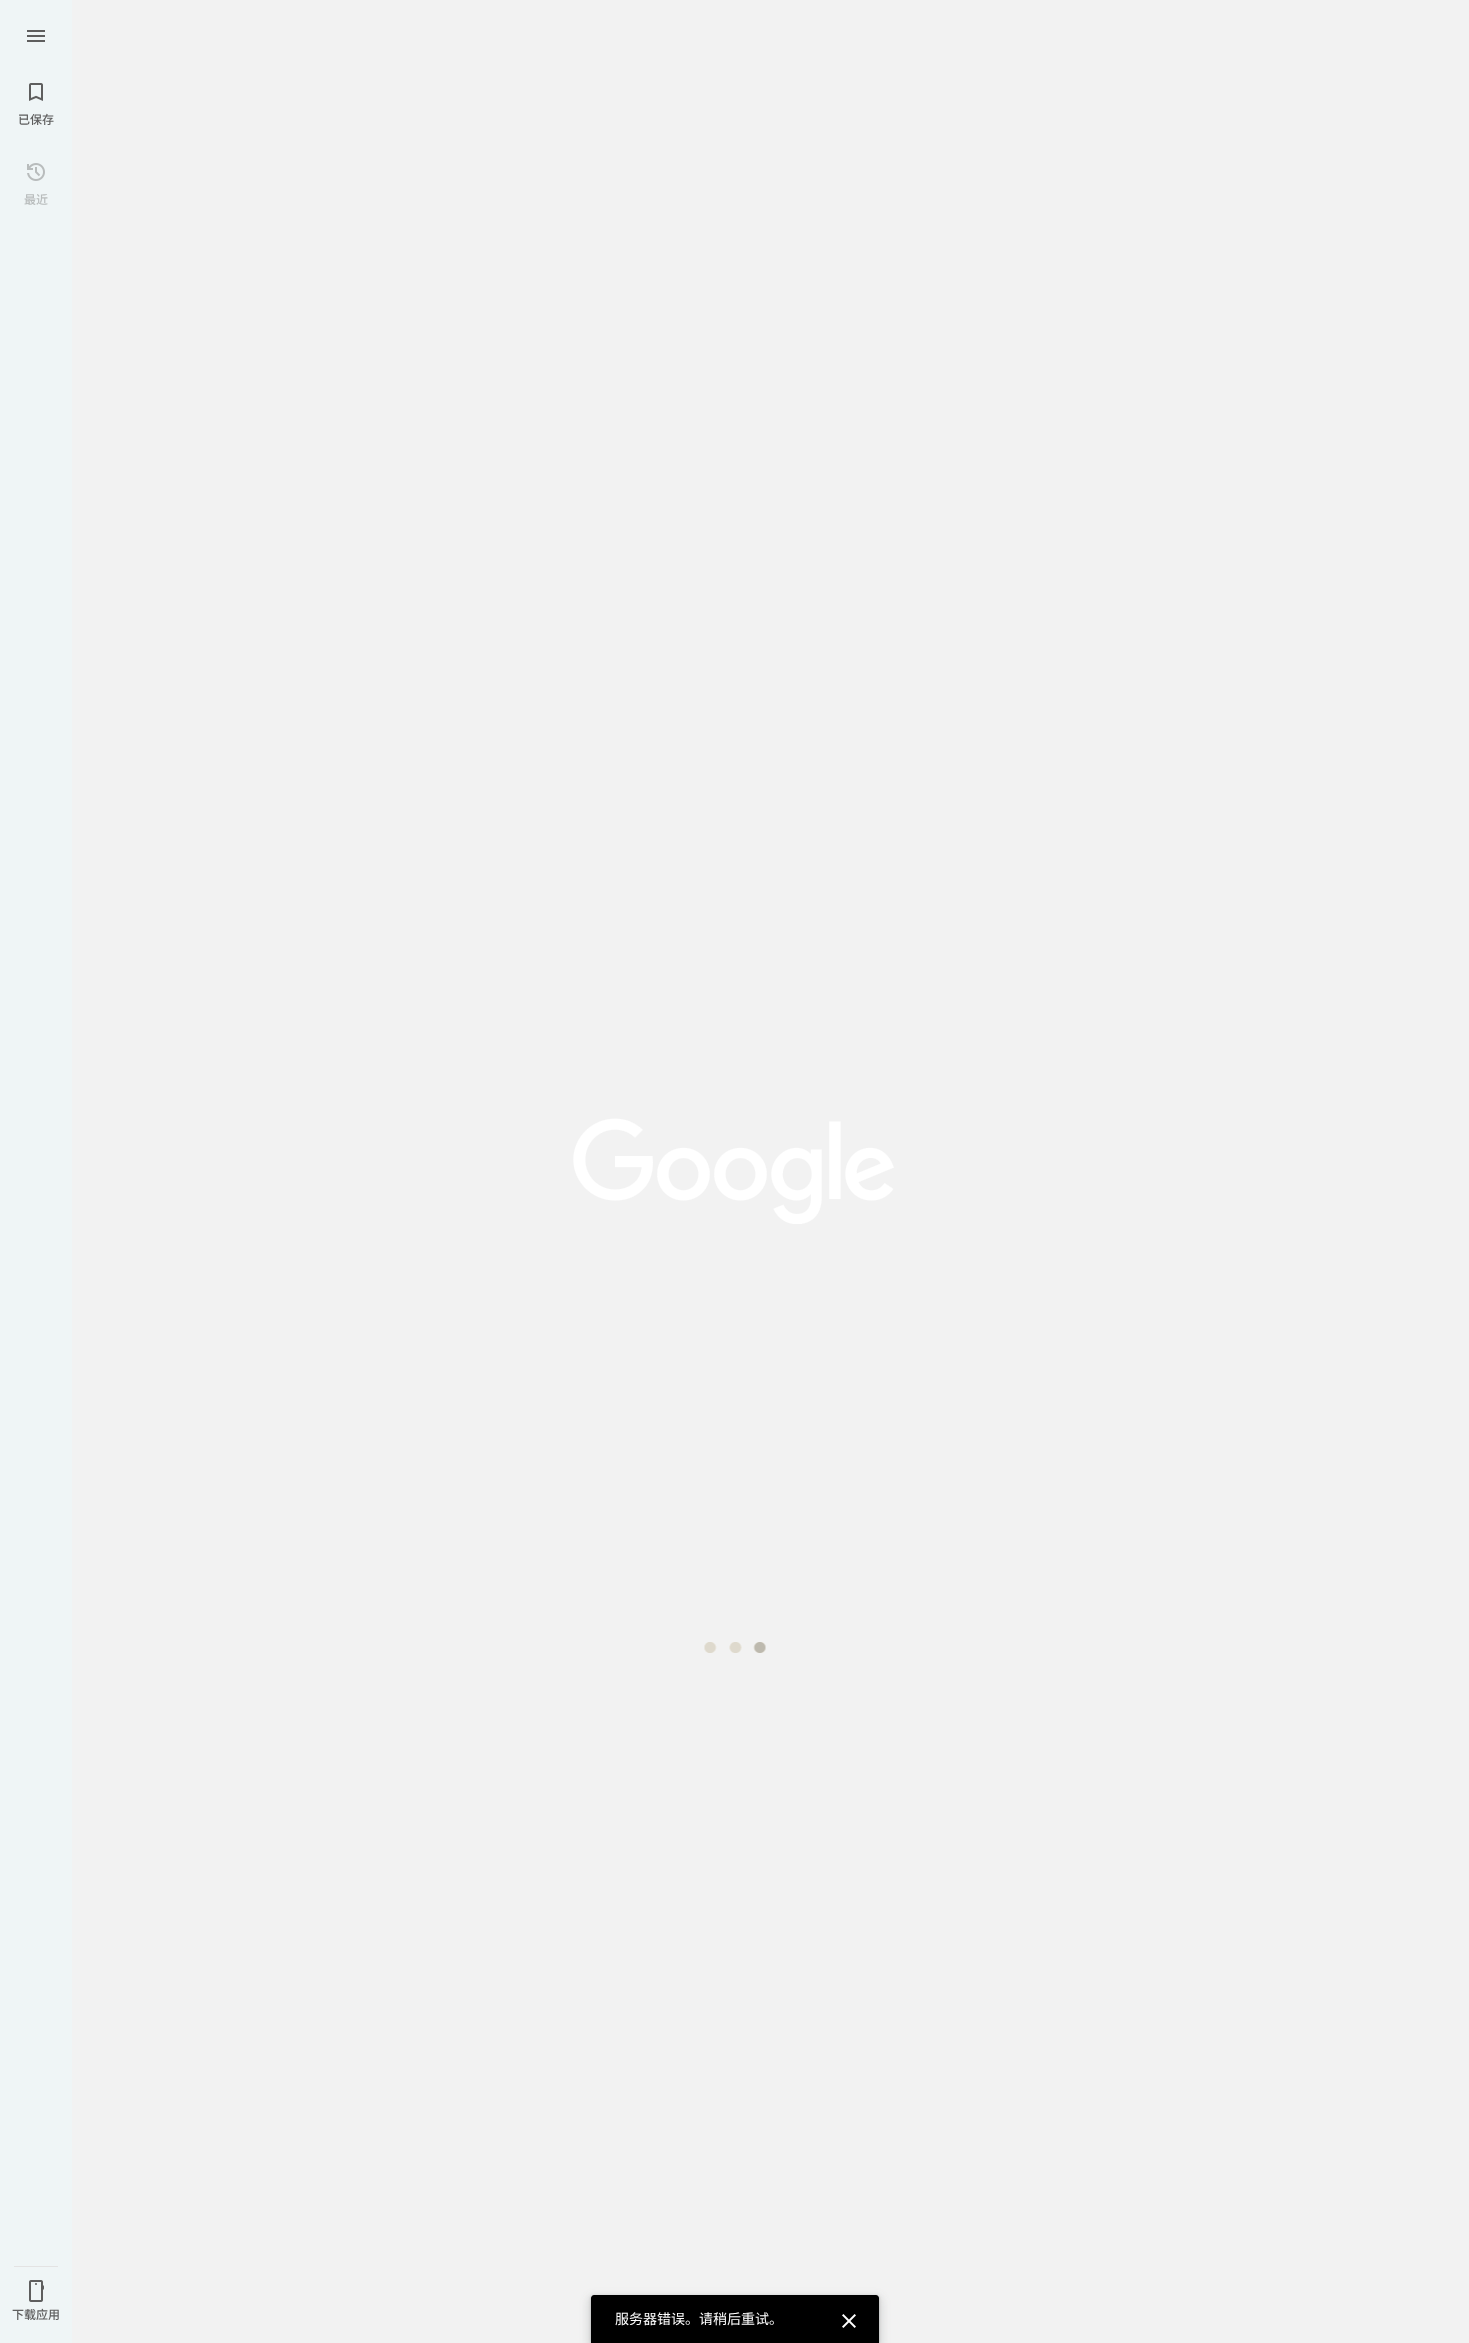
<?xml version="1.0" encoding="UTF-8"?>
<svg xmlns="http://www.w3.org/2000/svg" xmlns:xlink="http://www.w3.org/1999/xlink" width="1469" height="2343">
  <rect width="100%" height="100%" fill="#f2f2f2" />
  <rect width="72" height="2343" fill="#eff5f6" />
  <image x="27" y="30" width="18" height="12" xlink:href="image1.png" />
  <image x="29" y="83" width="14" height="18" xlink:href="image2.png" />
  <image x="27" y="163" width="18" height="18" xlink:href="image3.png" />
  <rect x="14" y="2266" width="44" height="1" fill="#e3e3e3" />
  <image x="29" y="2280" width="15" height="22" xlink:href="image4.png" />
  <image x="573" y="1118" width="321" height="106" xlink:href="image5.png" />
  <image x="704" y="1642" width="62" height="11" xlink:href="image6.png" />
  <rect x="588" y="2296" width="294" height="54" rx="6" fill="#3c4043" fill-opacity="0.15" filter="blur(4px)" />
  <rect x="591" y="2296" width="288" height="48" rx="3" fill="#3c4043" fill-opacity="0.3" filter="blur(1.5px)" />
  <path d="M 594 2295 h 282 c 1.5 0 3 1.5 3 3 v 45 h -288 v -45 c 0 -1.5 1.5 -3 3 -3 z" fill="#000000" />
  <image x="842" y="2314" width="14" height="14" xlink:href="image7.png" />
  <text x="18" y="124" style="font-family: Noto Sans SC; font-size: 12px; font-weight: 500; fill: #5e5e5e">已保存</text>
  <text x="24" y="204" style="font-family: Noto Sans SC; font-size: 12px; font-weight: 500; fill: #b8bcbc">最近</text>
  <text x="12" y="2319" style="font-family: Noto Sans SC; font-size: 12px; font-weight: 500; fill: #5e5e5e">下载应用</text>
  <text x="615" y="2324" style="font-family: Noto Sans SC; font-size: 14px; fill: #ffffff">服务器错误。请稍后重试。</text>
</svg>
